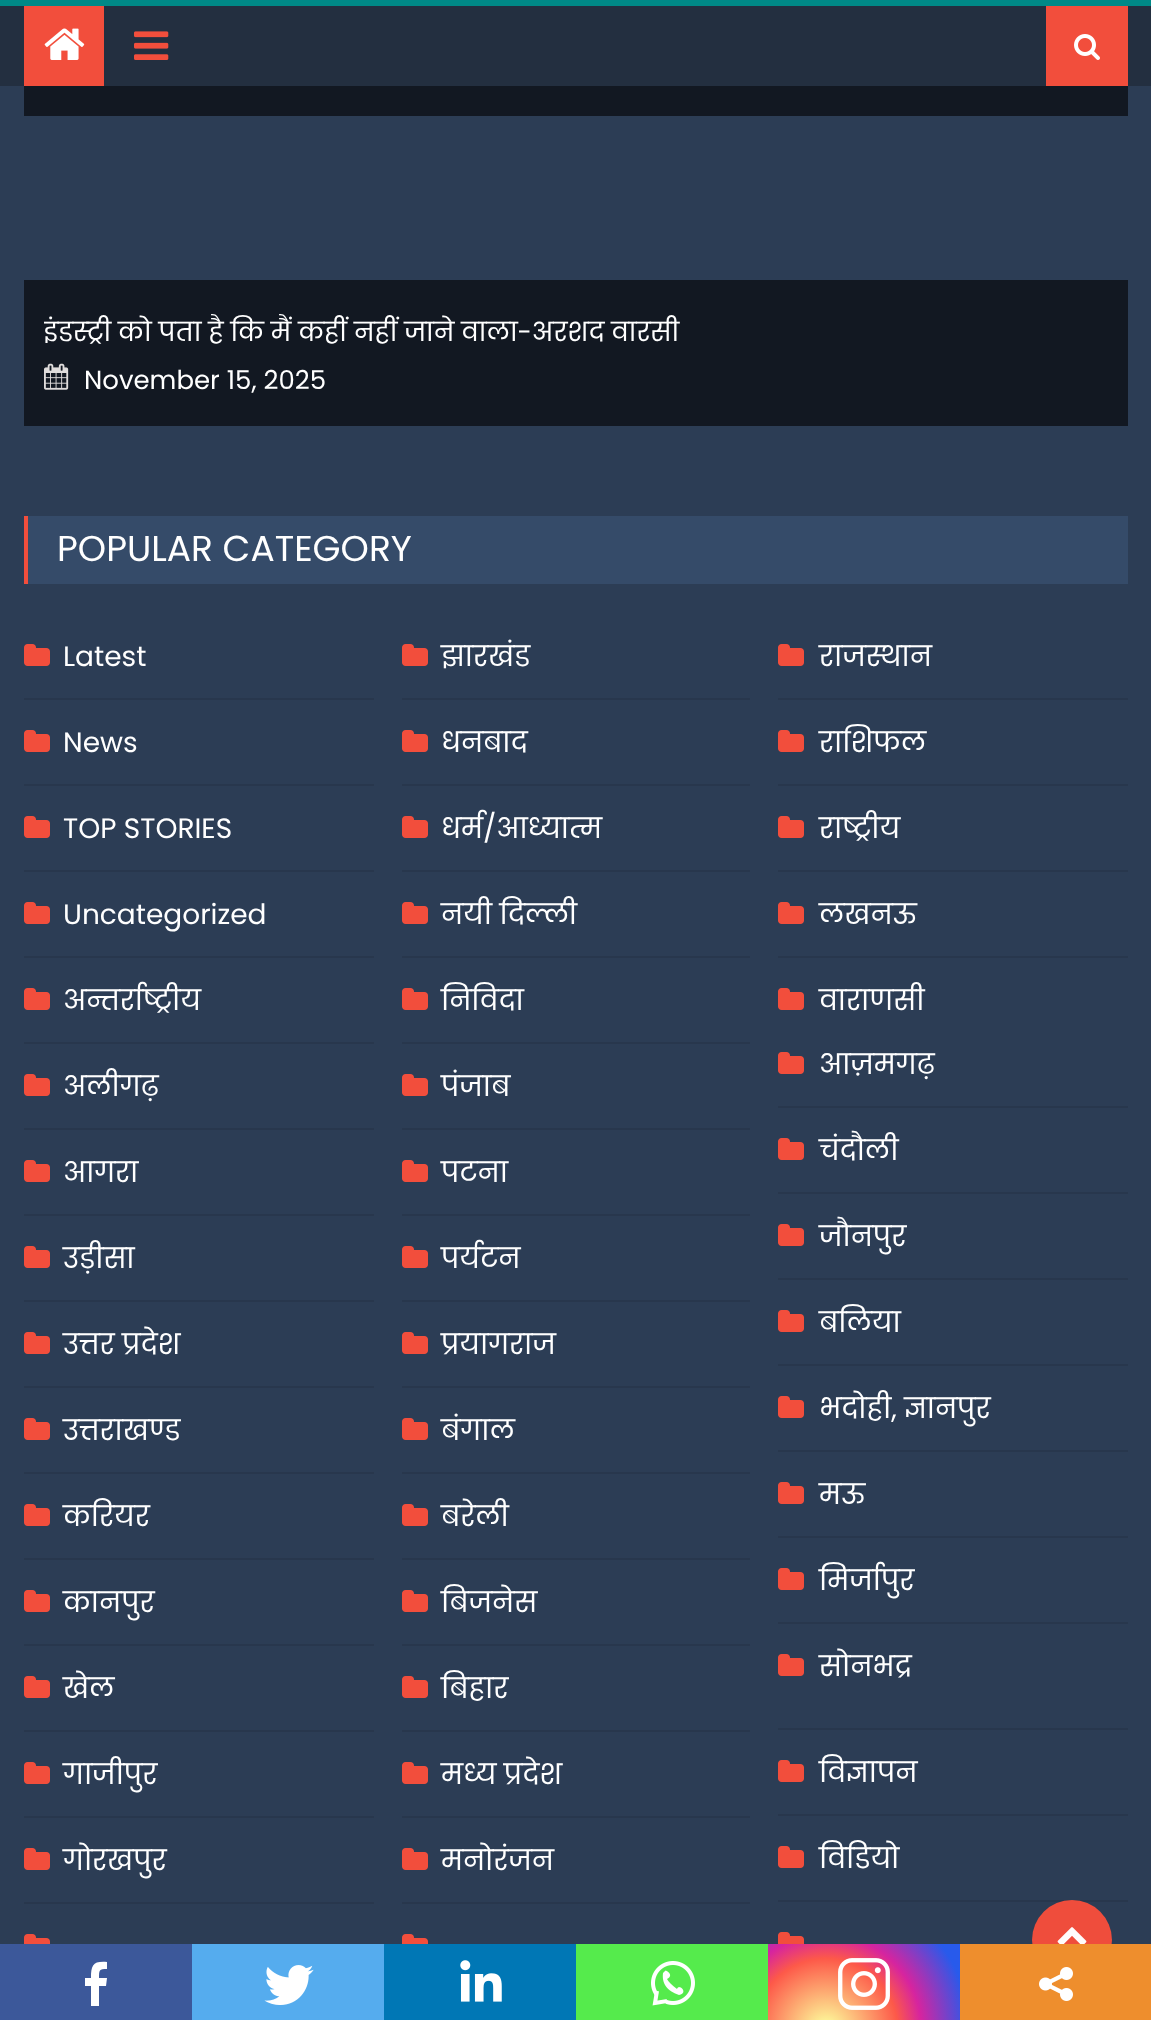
<?xml version="1.0" encoding="UTF-8"?>
<svg xmlns="http://www.w3.org/2000/svg" xmlns:xlink="http://www.w3.org/1999/xlink" width="1151" height="2020">
  <defs>
    <radialGradient id="g1" gradientUnits="userSpaceOnUse" cx="826" cy="2030" r="159"><stop offset="0" stop-color="#fdf497" /><stop offset="0.05" stop-color="#fdf497" /><stop offset="0.45" stop-color="#fd5949" /><stop offset="0.6" stop-color="#d6249f" /><stop offset="0.9" stop-color="#285aeb" /></radialGradient>
    <clipPath id="clip1"><rect x="44" y="300" width="1064" height="54" /></clipPath>
  </defs>
  <rect width="100%" height="100%" fill="#2c3d55" />
  <rect y="6" width="1151" height="80" fill="#232f40" />
  <rect width="1151" height="6" fill="#008987" />
  <rect x="24" y="6" width="80" height="80" fill="#f24e3c" />
  <image x="44" y="28" width="41" height="32" xlink:href="image1.png" />
  <image x="134" y="31" width="35" height="29" xlink:href="image2.png" />
  <rect x="1046" y="6" width="82" height="80" fill="#f24e3c" />
  <image x="1074" y="34" width="26" height="26" xlink:href="image3.png" />
  <rect x="24" y="86" width="1104" height="30" fill="#121822" />
  <rect x="24" y="280" width="1104" height="146" fill="#121822" />
  <image x="44" y="363" width="25" height="27" xlink:href="image4.png" />
  <rect x="28" y="516" width="1100" height="68" fill="#354b69" />
  <rect x="24" y="516" width="4" height="68" fill="#f24e3c" />
  <rect x="24" y="698" width="350" height="2" fill="#28374d" />
  <image x="24" y="644" width="26" height="22" xlink:href="image5.png" />
  <rect x="402" y="698" width="348" height="2" fill="#28374d" />
  <image x="402" y="644" width="26" height="22" xlink:href="image5.png" />
  <rect x="778" y="698" width="350" height="2" fill="#28374d" />
  <image x="778" y="644" width="26" height="22" xlink:href="image5.png" />
  <rect x="24" y="784" width="350" height="2" fill="#28374d" />
  <image x="24" y="730" width="26" height="22" xlink:href="image5.png" />
  <rect x="402" y="784" width="348" height="2" fill="#28374d" />
  <image x="402" y="730" width="26" height="22" xlink:href="image5.png" />
  <rect x="778" y="784" width="350" height="2" fill="#28374d" />
  <image x="778" y="730" width="26" height="22" xlink:href="image5.png" />
  <rect x="24" y="870" width="350" height="2" fill="#28374d" />
  <image x="24" y="816" width="26" height="22" xlink:href="image5.png" />
  <rect x="402" y="870" width="348" height="2" fill="#28374d" />
  <image x="402" y="816" width="26" height="22" xlink:href="image5.png" />
  <rect x="778" y="870" width="350" height="2" fill="#28374d" />
  <image x="778" y="816" width="26" height="22" xlink:href="image5.png" />
  <rect x="24" y="956" width="350" height="2" fill="#28374d" />
  <image x="24" y="902" width="26" height="22" xlink:href="image5.png" />
  <rect x="402" y="956" width="348" height="2" fill="#28374d" />
  <image x="402" y="902" width="26" height="22" xlink:href="image5.png" />
  <rect x="778" y="956" width="350" height="2" fill="#28374d" />
  <image x="778" y="902" width="26" height="22" xlink:href="image5.png" />
  <rect x="24" y="1042" width="350" height="2" fill="#28374d" />
  <image x="24" y="988" width="26" height="22" xlink:href="image5.png" />
  <rect x="402" y="1042" width="348" height="2" fill="#28374d" />
  <image x="402" y="988" width="26" height="22" xlink:href="image5.png" />
  <rect x="778" y="1728" width="350" height="2" fill="#28374d" />
  <image x="778" y="988" width="26" height="22" xlink:href="image5.png" />
  <rect x="778" y="1106" width="350" height="2" fill="#28374d" />
  <image x="778" y="1052" width="26" height="22" xlink:href="image5.png" />
  <rect x="778" y="1192" width="350" height="2" fill="#28374d" />
  <image x="778" y="1138" width="26" height="22" xlink:href="image5.png" />
  <rect x="778" y="1278" width="350" height="2" fill="#28374d" />
  <image x="778" y="1224" width="26" height="22" xlink:href="image5.png" />
  <rect x="778" y="1364" width="350" height="2" fill="#28374d" />
  <image x="778" y="1310" width="26" height="22" xlink:href="image5.png" />
  <rect x="778" y="1450" width="350" height="2" fill="#28374d" />
  <image x="778" y="1396" width="26" height="22" xlink:href="image5.png" />
  <rect x="778" y="1536" width="350" height="2" fill="#28374d" />
  <image x="778" y="1482" width="26" height="22" xlink:href="image5.png" />
  <rect x="778" y="1622" width="350" height="2" fill="#28374d" />
  <image x="778" y="1568" width="26" height="22" xlink:href="image5.png" />
  <image x="778" y="1654" width="26" height="22" xlink:href="image5.png" />
  <rect x="24" y="1128" width="350" height="2" fill="#28374d" />
  <image x="24" y="1074" width="26" height="22" xlink:href="image5.png" />
  <rect x="402" y="1128" width="348" height="2" fill="#28374d" />
  <image x="402" y="1074" width="26" height="22" xlink:href="image5.png" />
  <rect x="24" y="1214" width="350" height="2" fill="#28374d" />
  <image x="24" y="1160" width="26" height="22" xlink:href="image5.png" />
  <rect x="402" y="1214" width="348" height="2" fill="#28374d" />
  <image x="402" y="1160" width="26" height="22" xlink:href="image5.png" />
  <rect x="24" y="1300" width="350" height="2" fill="#28374d" />
  <image x="24" y="1246" width="26" height="22" xlink:href="image5.png" />
  <rect x="402" y="1300" width="348" height="2" fill="#28374d" />
  <image x="402" y="1246" width="26" height="22" xlink:href="image5.png" />
  <rect x="24" y="1386" width="350" height="2" fill="#28374d" />
  <image x="24" y="1332" width="26" height="22" xlink:href="image5.png" />
  <rect x="402" y="1386" width="348" height="2" fill="#28374d" />
  <image x="402" y="1332" width="26" height="22" xlink:href="image5.png" />
  <rect x="24" y="1472" width="350" height="2" fill="#28374d" />
  <image x="24" y="1418" width="26" height="22" xlink:href="image5.png" />
  <rect x="402" y="1472" width="348" height="2" fill="#28374d" />
  <image x="402" y="1418" width="26" height="22" xlink:href="image5.png" />
  <rect x="24" y="1558" width="350" height="2" fill="#28374d" />
  <image x="24" y="1504" width="26" height="22" xlink:href="image5.png" />
  <rect x="402" y="1558" width="348" height="2" fill="#28374d" />
  <image x="402" y="1504" width="26" height="22" xlink:href="image5.png" />
  <rect x="24" y="1644" width="350" height="2" fill="#28374d" />
  <image x="24" y="1590" width="26" height="22" xlink:href="image5.png" />
  <rect x="402" y="1644" width="348" height="2" fill="#28374d" />
  <image x="402" y="1590" width="26" height="22" xlink:href="image5.png" />
  <rect x="24" y="1730" width="350" height="2" fill="#28374d" />
  <image x="24" y="1676" width="26" height="22" xlink:href="image5.png" />
  <rect x="402" y="1730" width="348" height="2" fill="#28374d" />
  <image x="402" y="1676" width="26" height="22" xlink:href="image5.png" />
  <rect x="24" y="1816" width="350" height="2" fill="#28374d" />
  <image x="24" y="1762" width="26" height="22" xlink:href="image5.png" />
  <rect x="402" y="1816" width="348" height="2" fill="#28374d" />
  <image x="402" y="1762" width="26" height="22" xlink:href="image5.png" />
  <rect x="778" y="1814" width="350" height="2" fill="#28374d" />
  <image x="778" y="1760" width="26" height="22" xlink:href="image5.png" />
  <rect x="24" y="1902" width="350" height="2" fill="#28374d" />
  <image x="24" y="1848" width="26" height="22" xlink:href="image5.png" />
  <rect x="402" y="1902" width="348" height="2" fill="#28374d" />
  <image x="402" y="1848" width="26" height="22" xlink:href="image5.png" />
  <rect x="778" y="1900" width="350" height="2" fill="#28374d" />
  <image x="778" y="1846" width="26" height="22" xlink:href="image5.png" />
  <image x="24" y="1934" width="26" height="10" xlink:href="image6.png" />
  <image x="402" y="1934" width="26" height="10" xlink:href="image6.png" />
  <image x="778" y="1932" width="26" height="12" xlink:href="image7.png" />
  <circle cx="1072" cy="1940" r="40" fill="#f24e3c" fill-opacity="0.99" />
  <image x="1057" y="1927" width="30" height="17" xlink:href="image8.png" />
  <rect y="1944" width="192" height="76" fill="#3c589a" />
  <path d="M 99 2006 v -20 h 7 l 1 -8 h -8 c 0 -8 0 -9 8 -9 v -7 c -14 -1 -16 3 -16 16 h -6 v 8 h 6 v 20 z" fill="#ffffff" />
  <rect x="192" y="1944" width="192" height="76" fill="#55acee" />
  <image x="264" y="1965" width="50" height="40" xlink:href="image9.png" />
  <rect x="384" y="1944" width="192" height="76" fill="#0077b5" />
  <image x="460" y="1960" width="42" height="42" xlink:href="image10.png" />
  <rect x="576" y="1944" width="192" height="76" fill="#55eb4c" />
  <image x="651" y="1961" width="44" height="45" xlink:href="image11.png" />
  <rect x="768" y="1944" width="192" height="76" fill="url(#g1)" />
  <image x="838" y="1958" width="52" height="52" xlink:href="image12.png" />
  <rect x="960" y="1944" width="191" height="76" fill="#ee8e2d" />
  <image x="1039" y="1967" width="34" height="34" xlink:href="image13.png" />
  <g clip-path="url(#clip1)">
    <text x="43" y="341" style="font-family: Poppins; font-size: 26px; fill: #ffffff">इंडस्ट्री को पता है कि मैं कहीं नहीं जाने वाला-अरशद वारसी</text>
  </g>
  <text x="84" y="389" style="font-family: Poppins; font-size: 26px; fill: #ffffff">November 15, 2025</text>
  <text x="57" y="561" style="font-family: Poppins; font-size: 36px; fill: #ffffff">POPULAR CATEGORY</text>
  <text x="63" y="666" style="font-family: Poppins; font-size: 28px; fill: #ffffff">Latest</text>
  <text x="441" y="666" style="font-family: Poppins; font-size: 28px; fill: #ffffff">झारखंड</text>
  <text x="819" y="666" style="font-family: Poppins; font-size: 28px; fill: #ffffff">राजस्थान</text>
  <text x="63" y="752" style="font-family: Poppins; font-size: 28px; fill: #ffffff">News</text>
  <text x="441" y="752" style="font-family: Poppins; font-size: 28px; fill: #ffffff">धनबाद</text>
  <text x="819" y="752" style="font-family: Poppins; font-size: 28px; fill: #ffffff">राशिफल</text>
  <text x="63" y="838" style="font-family: Poppins; font-size: 28px; fill: #ffffff">TOP STORIES</text>
  <text x="441" y="838" style="font-family: Poppins; font-size: 28px; fill: #ffffff">धर्म/आध्यात्म</text>
  <text x="819" y="838" style="font-family: Poppins; font-size: 28px; fill: #ffffff">राष्ट्रीय</text>
  <text x="63" y="924" style="font-family: Poppins; font-size: 28px; fill: #ffffff">Uncategorized</text>
  <text x="441" y="924" style="font-family: Poppins; font-size: 28px; fill: #ffffff">नयी दिल्ली</text>
  <text x="819" y="924" style="font-family: Poppins; font-size: 28px; fill: #ffffff">लखनऊ</text>
  <text x="63" y="1010" style="font-family: Poppins; font-size: 28px; fill: #ffffff">अन्तर्राष्ट्रीय</text>
  <text x="441" y="1010" style="font-family: Poppins; font-size: 28px; fill: #ffffff">निविदा</text>
  <text x="819" y="1010" style="font-family: Poppins; font-size: 28px; fill: #ffffff">वाराणसी</text>
  <text x="819" y="1074" style="font-family: Poppins; font-size: 28px; fill: #ffffff">आज़मगढ़</text>
  <text x="819" y="1160" style="font-family: Poppins; font-size: 28px; fill: #ffffff">चंदौली</text>
  <text x="819" y="1246" style="font-family: Poppins; font-size: 28px; fill: #ffffff">जौनपुर</text>
  <text x="819" y="1332" style="font-family: Poppins; font-size: 28px; fill: #ffffff">बलिया</text>
  <text x="819" y="1418" style="font-family: Poppins; font-size: 28px; fill: #ffffff">भदोही, ज्ञानपुर</text>
  <text x="819" y="1504" style="font-family: Poppins; font-size: 28px; fill: #ffffff">मऊ</text>
  <text x="819" y="1590" style="font-family: Poppins; font-size: 28px; fill: #ffffff">मिर्जापुर</text>
  <text x="819" y="1676" style="font-family: Poppins; font-size: 28px; fill: #ffffff">सोनभद्र</text>
  <text x="63" y="1096" style="font-family: Poppins; font-size: 28px; fill: #ffffff">अलीगढ़</text>
  <text x="441" y="1096" style="font-family: Poppins; font-size: 28px; fill: #ffffff">पंजाब</text>
  <text x="63" y="1182" style="font-family: Poppins; font-size: 28px; fill: #ffffff">आगरा</text>
  <text x="441" y="1182" style="font-family: Poppins; font-size: 28px; fill: #ffffff">पटना</text>
  <text x="63" y="1268" style="font-family: Poppins; font-size: 28px; fill: #ffffff">उड़ीसा</text>
  <text x="441" y="1268" style="font-family: Poppins; font-size: 28px; fill: #ffffff">पर्यटन</text>
  <text x="63" y="1354" style="font-family: Poppins; font-size: 28px; fill: #ffffff">उत्तर प्रदेश</text>
  <text x="441" y="1354" style="font-family: Poppins; font-size: 28px; fill: #ffffff">प्रयागराज</text>
  <text x="63" y="1440" style="font-family: Poppins; font-size: 28px; fill: #ffffff">उत्तराखण्ड</text>
  <text x="441" y="1440" style="font-family: Poppins; font-size: 28px; fill: #ffffff">बंगाल</text>
  <text x="63" y="1526" style="font-family: Poppins; font-size: 28px; fill: #ffffff">करियर</text>
  <text x="441" y="1526" style="font-family: Poppins; font-size: 28px; fill: #ffffff">बरेली</text>
  <text x="63" y="1612" style="font-family: Poppins; font-size: 28px; fill: #ffffff">कानपुर</text>
  <text x="441" y="1612" style="font-family: Poppins; font-size: 28px; fill: #ffffff">बिजनेस</text>
  <text x="63" y="1698" style="font-family: Poppins; font-size: 28px; fill: #ffffff">खेल</text>
  <text x="441" y="1698" style="font-family: Poppins; font-size: 28px; fill: #ffffff">बिहार</text>
  <text x="63" y="1784" style="font-family: Poppins; font-size: 28px; fill: #ffffff">गाजीपुर</text>
  <text x="441" y="1784" style="font-family: Poppins; font-size: 28px; fill: #ffffff">मध्य प्रदेश</text>
  <text x="819" y="1782" style="font-family: Poppins; font-size: 28px; fill: #ffffff">विज्ञापन</text>
  <text x="63" y="1870" style="font-family: Poppins; font-size: 28px; fill: #ffffff">गोरखपुर</text>
  <text x="441" y="1870" style="font-family: Poppins; font-size: 28px; fill: #ffffff">मनोरंजन</text>
  <text x="819" y="1868" style="font-family: Poppins; font-size: 28px; fill: #ffffff">विडियो</text>
</svg>
